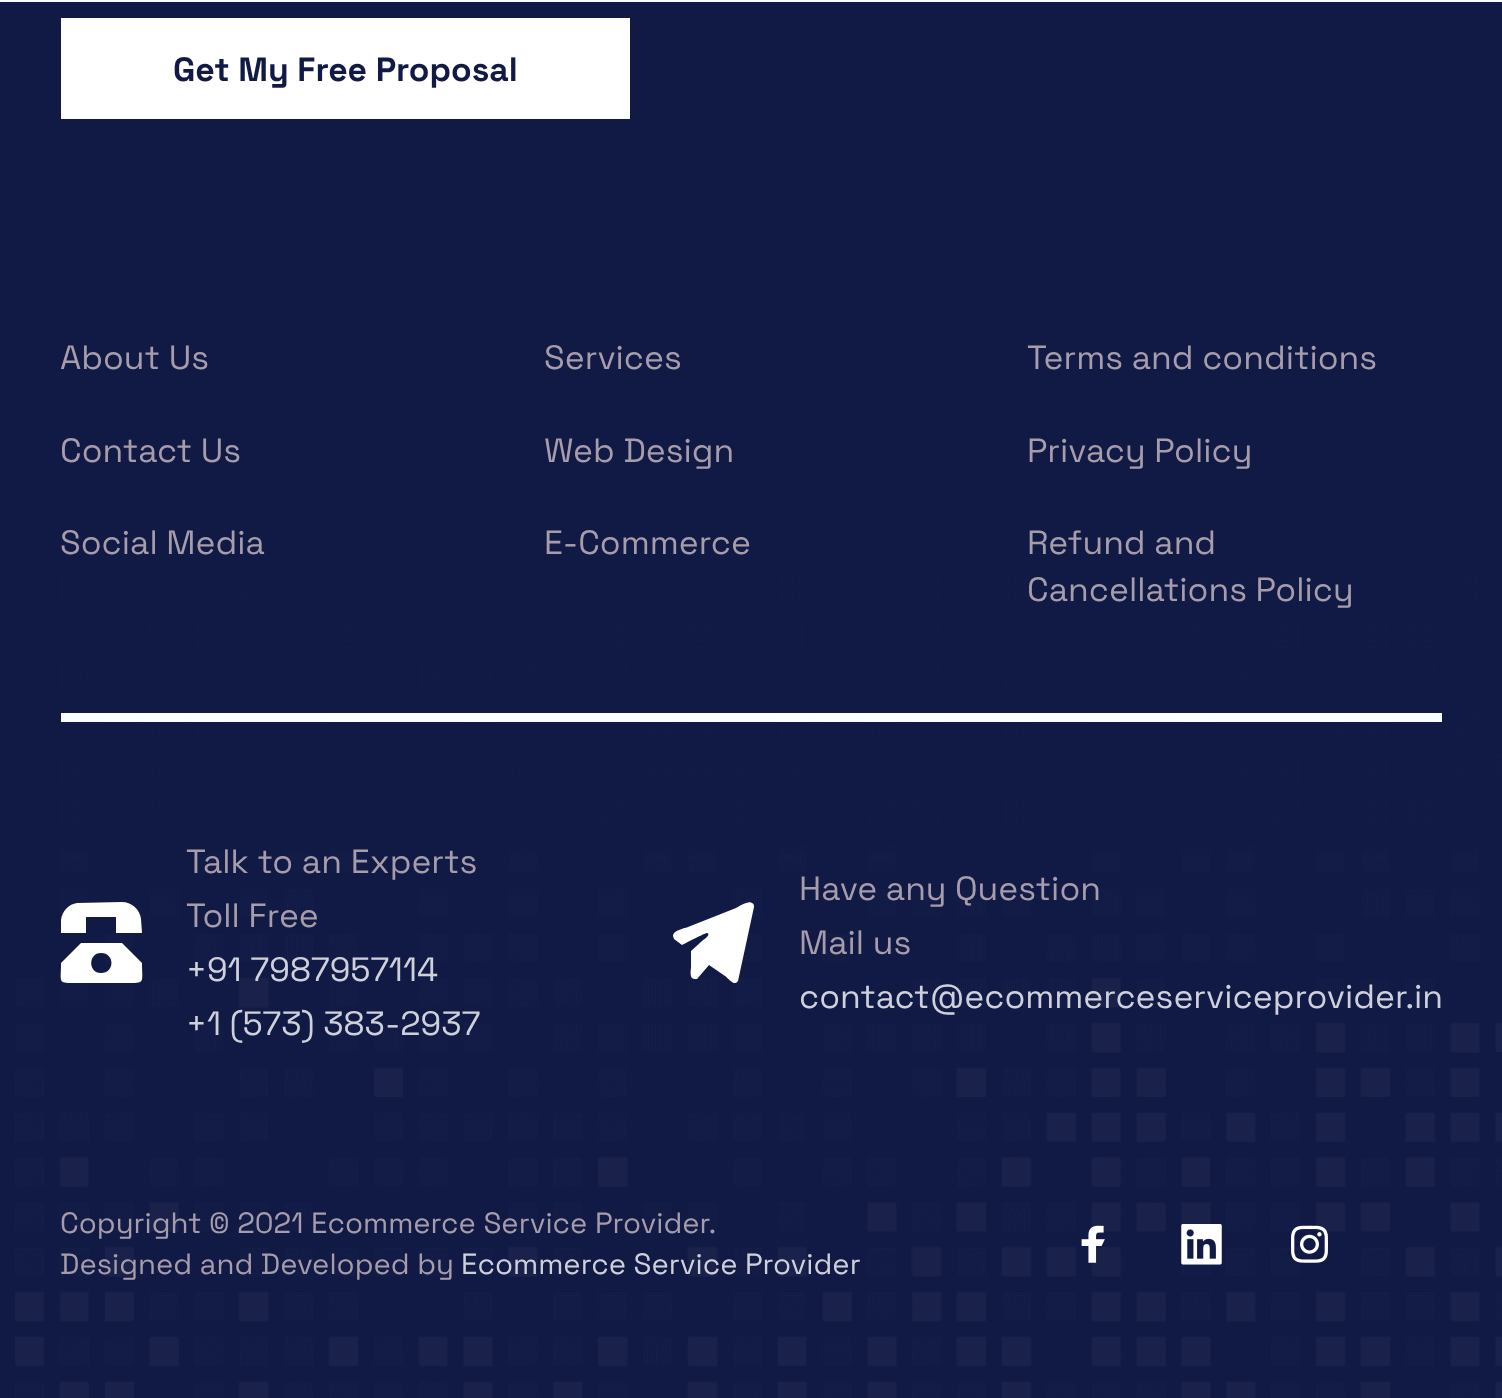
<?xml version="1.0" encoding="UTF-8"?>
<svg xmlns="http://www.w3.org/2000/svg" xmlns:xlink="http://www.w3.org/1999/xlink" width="1502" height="1398">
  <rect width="100%" height="100%" fill="#111a45" />
  <rect width="1502" height="2" fill="#ffffff" />
  <image x="15" y="512" width="1487" height="886" xlink:href="image1.png" />
  <rect x="61" y="18" width="569" height="101" fill="#ffffff" />
  <rect x="61" y="713" width="1381" height="9" fill="#ffffff" />
  <path d="M 122 902 l -45 1 c -8 1 -15 8 -16 17 v 13 h 25 v -16 h 30 v 16 h 26 l -1 -14 c -1 -10 -10 -17 -19 -17 z m -41 41 l -20 20 c 0 21 -4 20 17 20 h 47 c 21 0 17 1 17 -20 l -20 -20 z m 20 30 c -13 0 -13 -20 0 -20 c 14 0 14 20 0 20 z" fill="#ffffff" />
  <path d="M 691 951 v 16 c 0 3 -2 11 3 12 h 3 l 12 -14 l 16 11 c 3 2 7 8 11 7 l 2 -2 l 16 -74 c 0 -2 0 -3 -2 -4 c -3 -3 -14 4 -16 5 l -48 19 c -2 1 -15 3 -15 9 l 1 3 l 8 6 c 4 -2 23 -12 25 -12 c 4 1 -1 5 -5 8 z" fill="#ffffff" />
  <image x="1081" y="1225" width="24" height="38" xlink:href="image2.png" />
  <image x="1181" y="1224" width="41" height="41" xlink:href="image3.png" />
  <image x="1291" y="1225" width="37" height="38" xlink:href="image4.png" />
  <text x="173" y="81" style="font-family: Space Grotesk; font-size: 33.75px; font-weight: bold; fill: #111a45">Get My Free Proposal</text>
  <text x="60" y="369" style="font-family: Space Grotesk; font-size: 33.75px; fill: #a69caa">About Us</text>
  <text x="544" y="369" style="font-family: Space Grotesk; font-size: 33.75px; fill: #a69caa">Services</text>
  <text x="1027" y="369" style="font-family: Space Grotesk; font-size: 33.75px; fill: #a69caa">Terms and conditions</text>
  <text x="60" y="462" style="font-family: Space Grotesk; font-size: 33.75px; fill: #a69caa">Contact Us</text>
  <text x="544" y="462" style="font-family: Space Grotesk; font-size: 33.75px; fill: #a69caa">Web Design</text>
  <text x="1027" y="462" style="font-family: Space Grotesk; font-size: 33.75px; fill: #a69caa">Privacy Policy</text>
  <text x="60" y="554" style="font-family: Space Grotesk; font-size: 33.75px; fill: #a69caa">Social Media</text>
  <text x="544" y="554" style="font-family: Space Grotesk; font-size: 33.75px; fill: #a69caa">E-Commerce</text>
  <text x="1027" y="554" style="font-family: Space Grotesk; font-size: 33.75px; fill: #a69caa">Refund and</text>
  <text x="1027" y="601" style="font-family: Space Grotesk; font-size: 33.75px; fill: #a69caa">Cancellations Policy</text>
  <text x="186" y="873" style="font-family: Space Grotesk; font-size: 33.75px; fill: #a69caa">Talk to an Experts</text>
  <text x="186" y="927" style="font-family: Space Grotesk; font-size: 33.75px; fill: #a69caa">Toll Free</text>
  <text x="186" y="981" style="font-family: Space Grotesk; font-size: 33.75px; fill: #cfd1da">+91 7987957114</text>
  <text x="186" y="1035" style="font-family: Space Grotesk; font-size: 33.75px; fill: #cfd1da">+1 (573) 383-2937</text>
  <text x="799" y="900" style="font-family: Space Grotesk; font-size: 33.75px; fill: #a69caa">Have any Question</text>
  <text x="799" y="954" style="font-family: Space Grotesk; font-size: 33.75px; fill: #a69caa">Mail us</text>
  <text x="799" y="1008" style="font-family: Space Grotesk; font-size: 33.75px; fill: #cfd1da">contact@ecommerceserviceprovider.in</text>
  <text x="60" y="1233" style="font-family: Space Grotesk; font-size: 29.25px; fill: #a69caa">Copyright © 2021 Ecommerce Service Provider.</text>
  <text x="60" y="1274" style="font-family: Space Grotesk; font-size: 29.25px; fill: #a69caa">Designed and Developed by</text>
  <text x="461" y="1274" style="font-family: Space Grotesk; font-size: 29.25px; fill: #cfd1da">Ecommerce Service Provider</text>
</svg>
